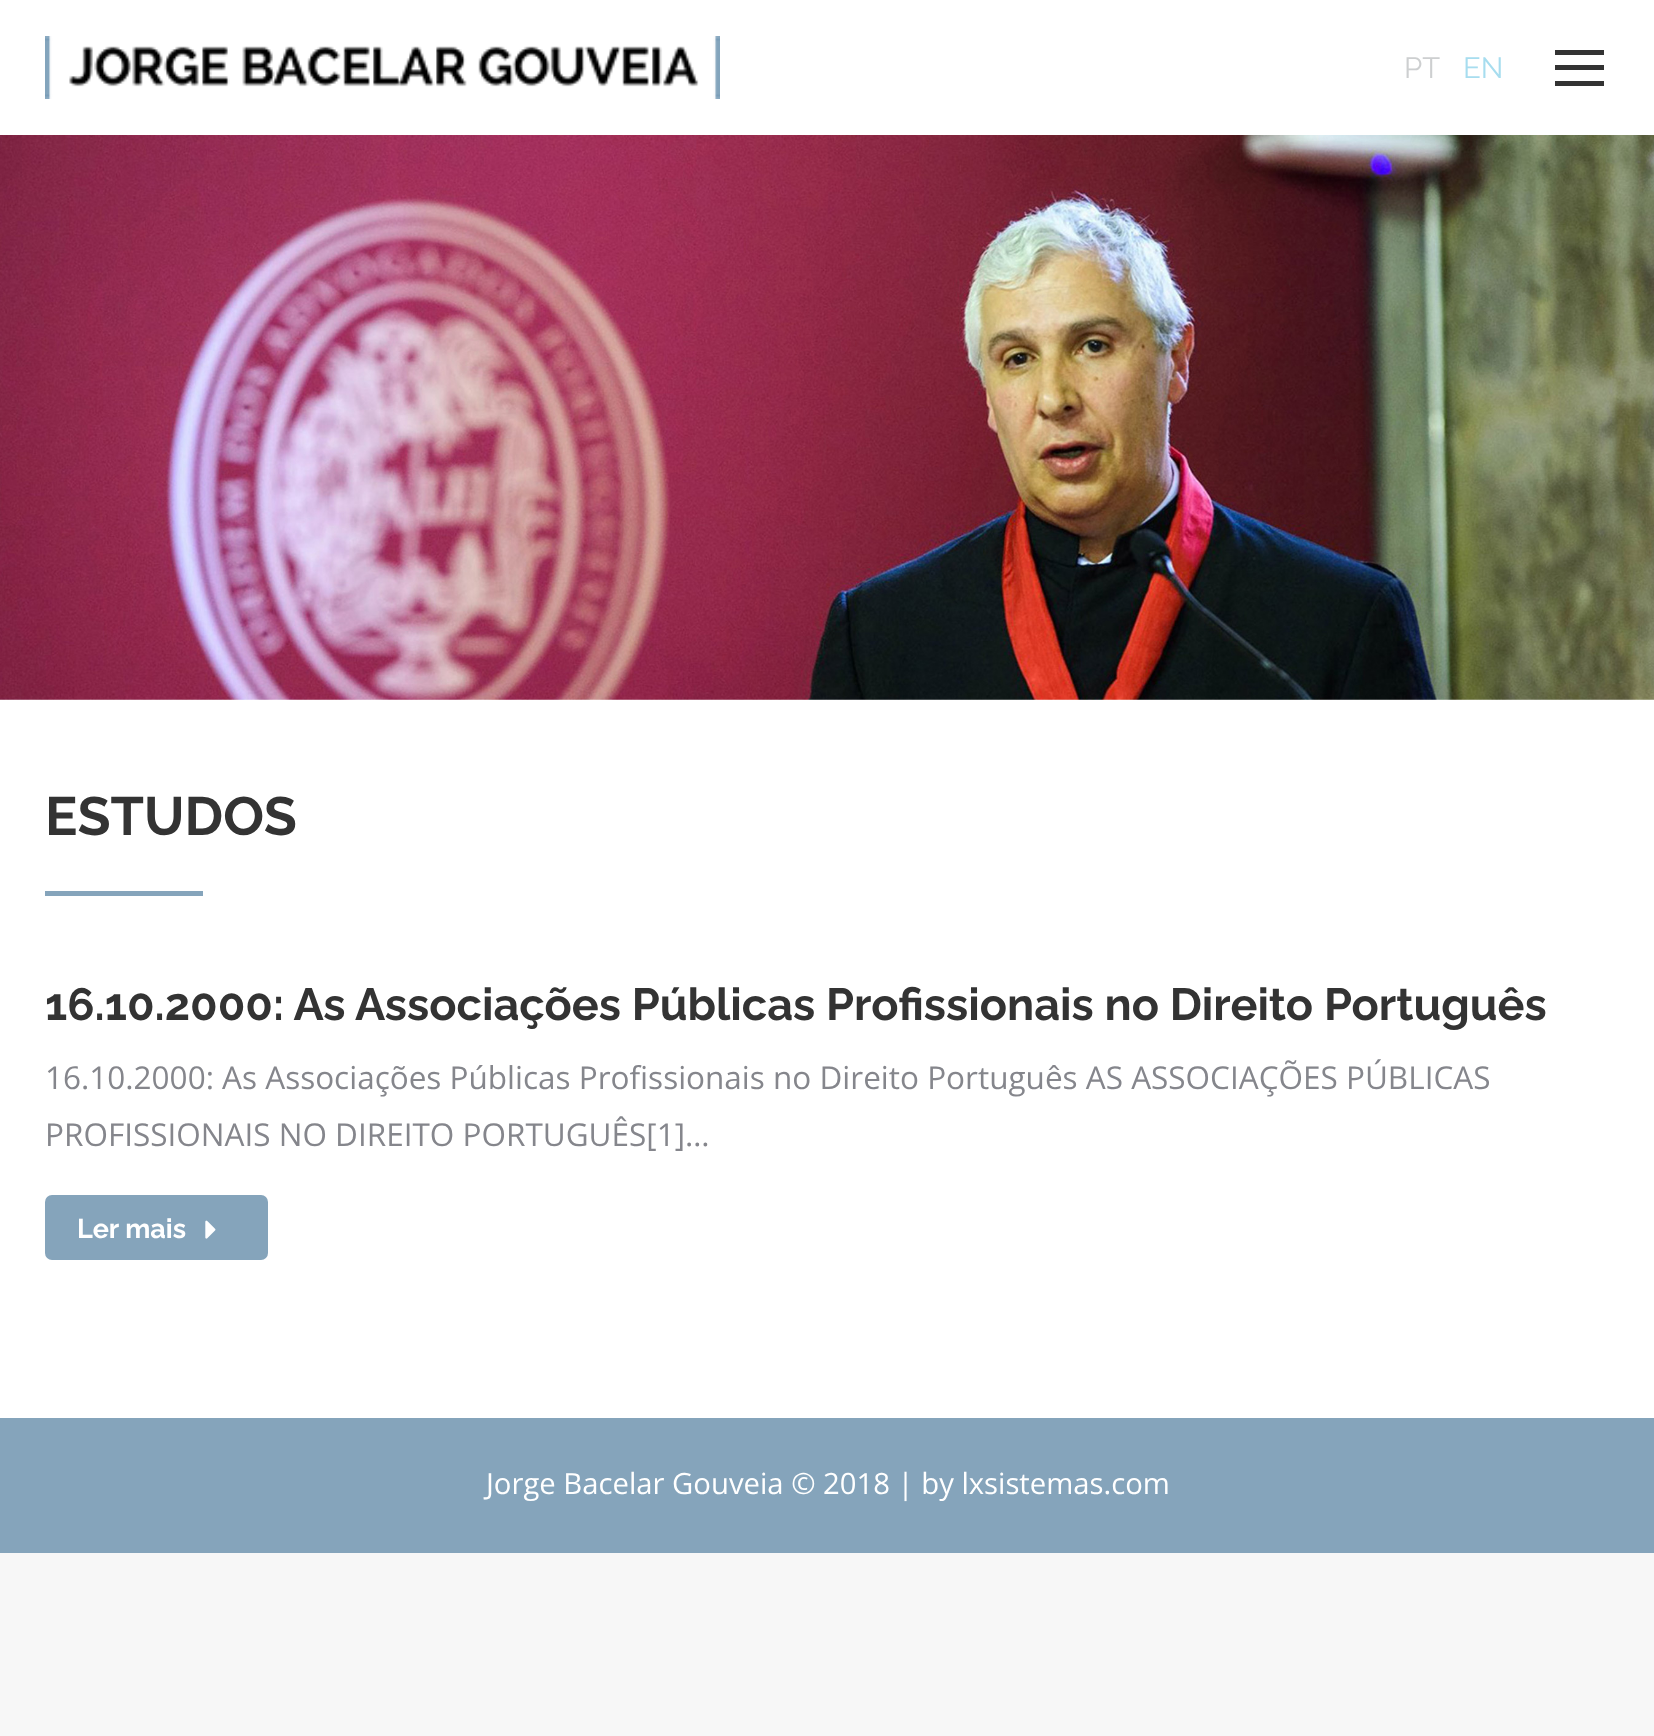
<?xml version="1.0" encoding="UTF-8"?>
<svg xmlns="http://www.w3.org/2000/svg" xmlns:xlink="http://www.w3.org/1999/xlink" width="1654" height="1736">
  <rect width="100%" height="100%" fill="#f7f7f7" />
  <rect width="1654" height="1418" fill="#ffffff" />
  <image x="45" y="36" width="675" height="63" xlink:href="image1.png" />
  <rect x="1555" y="50" width="49" height="5" fill="#333333" />
  <rect x="1555" y="65" width="49" height="5" fill="#333333" />
  <rect x="1555" y="81" width="49" height="5" fill="#333333" />
  <image x="0" y="135" width="1654" height="565" xlink:href="image2.png" />
  <rect x="45" y="891" width="158" height="5" fill="#85a4bb" />
  <rect x="45" y="1195" width="223" height="65" rx="7" fill="#85a4bb" />
  <image x="205" y="1220" width="11" height="19" xlink:href="image3.png" />
  <rect y="1418" width="1654" height="135" fill="#85a4bb" />
  <text x="1404" y="78" style="font-family: Raleway; font-size: 29.25px; fill: #cdcfd0">PT</text>
  <text x="1463" y="78" style="font-family: Raleway; font-size: 29.25px; fill: #a7ddef">EN</text>
  <text x="45" y="835" style="font-family: Raleway; font-size: 54px; font-weight: bold; fill: #333333">ESTUDOS</text>
  <text x="45" y="1020" style="font-family: Raleway; font-size: 45px; font-weight: bold; fill: #333333">16.10.2000: As Associações Públicas Profissionais no Direito Português</text>
  <text x="45" y="1089" style="font-family: Open Sans; font-size: 31.5px; fill: #85868c">16.10.2000: As Associações Públicas Profissionais no Direito Português AS ASSOCIAÇÕES PÚBLICAS</text>
  <text x="45" y="1146" style="font-family: Open Sans; font-size: 31.5px; fill: #85868c">PROFISSIONAIS NO DIREITO PORTUGUÊS[1]…</text>
  <text x="77" y="1238" style="font-family: Raleway; font-size: 27px; font-weight: bold; fill: #ffffff">Ler mais</text>
  <text x="486" y="1494" style="font-family: Open Sans; font-size: 29.25px; fill: #ffffff">Jorge Bacelar Gouveia © 2018 | by lxsistemas.com</text>
</svg>
